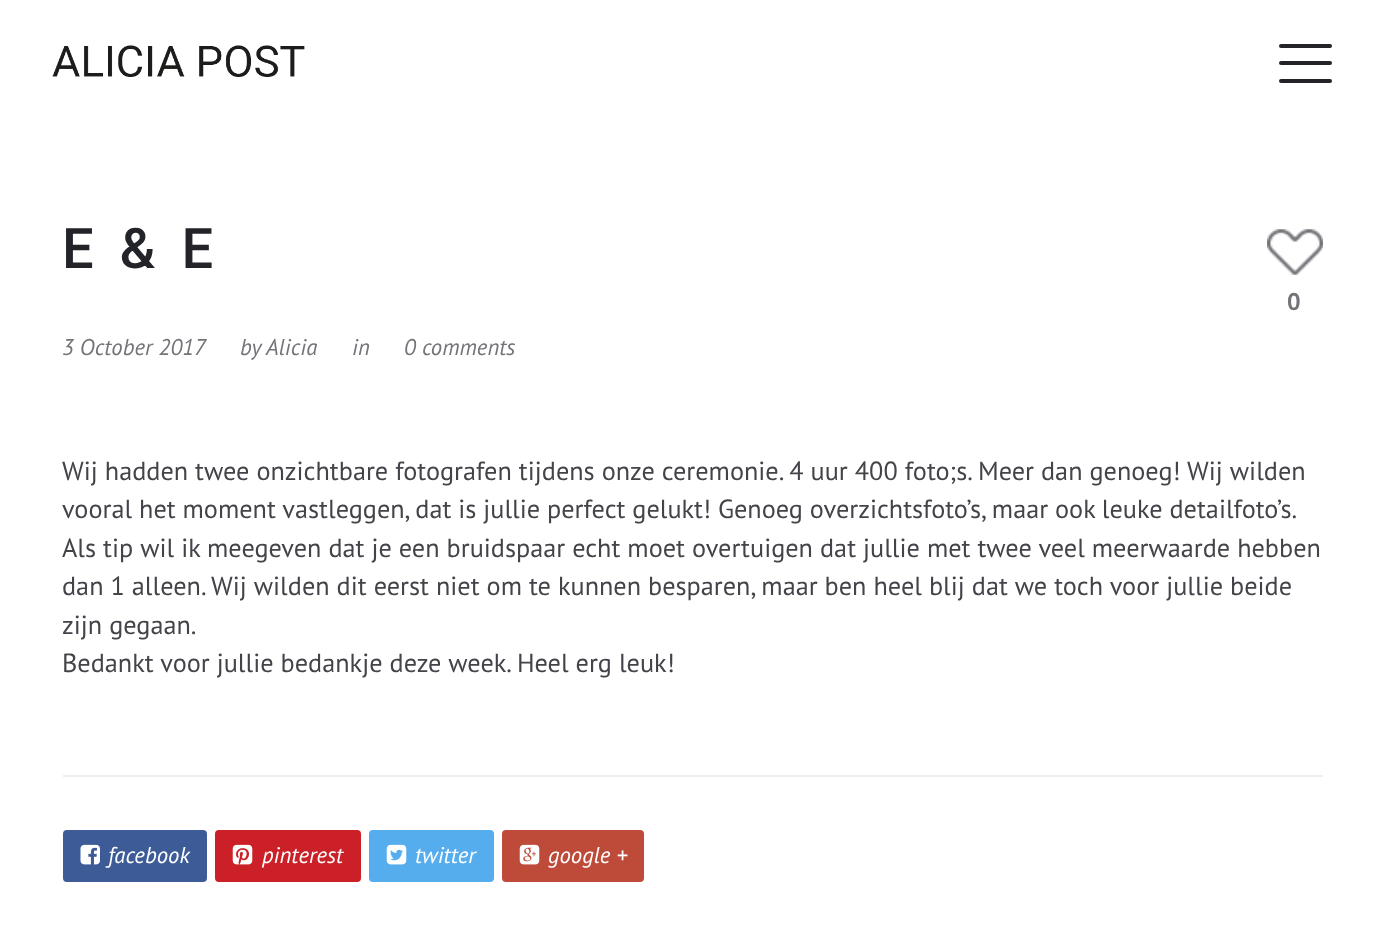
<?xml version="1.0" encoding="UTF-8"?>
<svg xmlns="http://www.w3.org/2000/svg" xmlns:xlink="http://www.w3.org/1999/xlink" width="1384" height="928">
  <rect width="100%" height="100%" fill="#ffffff" />
  <image x="52" y="45" width="253" height="32" xlink:href="image1.png" />
  <rect x="1279" y="61" width="53" height="4" rx="2" fill="#232429" />
  <rect x="1279" y="44" width="53" height="4" rx="2" fill="#232429" />
  <rect x="1279" y="79" width="53" height="4" rx="2" fill="#232429" />
  <image x="1267" y="229" width="56" height="46" xlink:href="image2.png" />
  <rect x="63" y="775" width="1260" height="2" fill="#eeeeee" />
  <rect x="63" y="830" width="144" height="52" rx="4" fill="#3d5c97" />
  <image x="80" y="844" width="20" height="21" xlink:href="image3.png" />
  <rect x="215" y="830" width="146" height="52" rx="4" fill="#cb2027" />
  <image x="232" y="844" width="21" height="21" xlink:href="image4.png" />
  <rect x="369" y="830" width="125" height="52" rx="4" fill="#55adee" />
  <image x="386" y="844" width="21" height="21" xlink:href="image5.png" />
  <rect x="502" y="830" width="142" height="52" rx="4" fill="#be4a39" />
  <image x="519" y="844" width="21" height="21" xlink:href="image6.png" />
  <text x="62" y="268" style="font-family: Roboto; font-size: 56px; font-weight: 500; letter-spacing: 6px; fill: #232429">E &amp; E</text>
  <text x="1287" y="310" style="font-family: PT Sans; font-size: 24px; font-weight: bold; fill: #737479">0</text>
  <text x="62" y="355" style="font-family: PT Sans; font-size: 22.75px; font-style: italic; fill: #737479">3 October 2017</text>
  <text x="240" y="355" style="font-family: PT Sans; font-size: 22.75px; font-style: italic; fill: #737479">by</text>
  <text x="266" y="355" style="font-family: PT Sans; font-size: 22.75px; font-style: italic; fill: #737479">Alicia</text>
  <text x="352" y="355" style="font-family: PT Sans; font-size: 22.75px; font-style: italic; fill: #737479">in</text>
  <text x="404" y="355" style="font-family: PT Sans; font-size: 22.75px; font-style: italic; fill: #737479">0 comments</text>
  <text x="62" y="480" style="font-family: PT Sans; font-size: 26.25px; fill: #434449">Wij hadden twee onzichtbare fotografen tijdens onze ceremonie. 4 uur 400 foto;s. Meer dan genoeg! Wij wilden</text>
  <text x="62" y="518" word-spacing="-0.1" style="font-family: PT Sans; font-size: 26.25px; fill: #434449">vooral het moment vastleggen, dat is jullie perfect gelukt! Genoeg overzichtsfoto’s, maar ook leuke detailfoto’s.</text>
  <text x="62" y="557" style="font-family: PT Sans; font-size: 26.25px; fill: #434449">Als tip wil ik meegeven dat je een bruidspaar echt moet overtuigen dat jullie met twee veel meerwaarde hebben</text>
  <text x="62" y="595" style="font-family: PT Sans; font-size: 26.25px; fill: #434449">dan 1 alleen. Wij wilden dit eerst niet om te kunnen besparen, maar ben heel blij dat we toch voor jullie beide</text>
  <text x="62" y="634" style="font-family: PT Sans; font-size: 26.25px; fill: #434449">zijn gegaan.</text>
  <text x="62" y="672" style="font-family: PT Sans; font-size: 26.25px; fill: #434449">Bedankt voor jullie bedankje deze week. Heel erg leuk!</text>
  <text x="108" y="863" style="font-family: PT Sans; font-size: 22.75px; font-style: italic; fill: #ffffff">facebook</text>
  <text x="262" y="863" style="font-family: PT Sans; font-size: 22.75px; font-style: italic; fill: #ffffff">pinterest</text>
  <text x="415" y="863" style="font-family: PT Sans; font-size: 22.75px; font-style: italic; fill: #ffffff">twitter</text>
  <text x="548" y="863" style="font-family: PT Sans; font-size: 22.75px; font-style: italic; fill: #ffffff">google +</text>
</svg>
